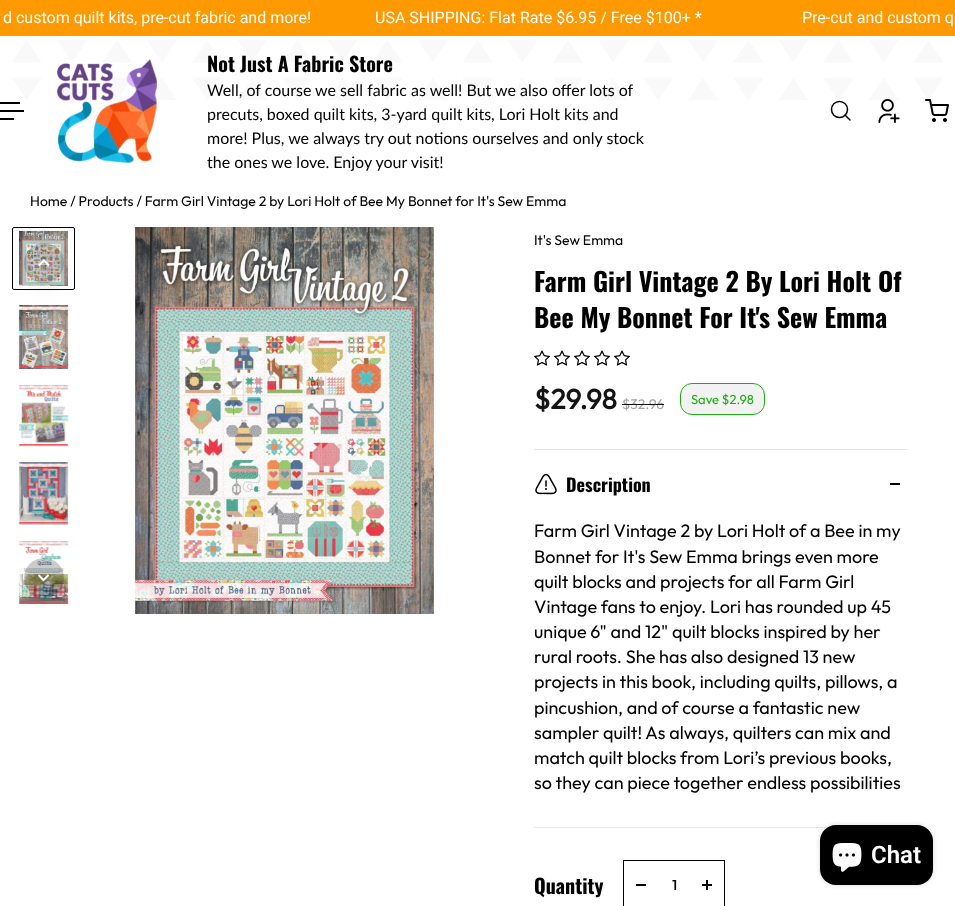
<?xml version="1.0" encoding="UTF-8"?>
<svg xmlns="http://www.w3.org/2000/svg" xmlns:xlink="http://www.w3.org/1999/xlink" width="955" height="906">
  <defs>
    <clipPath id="clip1"><path d="M 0 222 h 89 v 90 h -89 z m 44 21 c 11 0 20 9 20 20 c 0 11 -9 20 -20 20 c -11 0 -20 -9 -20 -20 c 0 -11 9 -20 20 -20 z" clip-rule="evenodd" /></clipPath>
  </defs>
  <rect width="100%" height="100%" fill="#ffffff" />
  <rect width="955" height="36" fill="#ff9900" />
  <image x="12" y="39" width="931" height="62" xlink:href="image1.png" />
  <rect y="102" width="20" height="2" fill="#000000" />
  <rect y="110" width="24" height="2" fill="#000000" />
  <rect y="118" width="14" height="2" fill="#000000" />
  <image x="57" y="59" width="100" height="105" xlink:href="image2.png" />
  <circle cx="839.5" cy="109.5" r="8" fill="none" stroke="#000000" stroke-width="1.5" />
  <path d="M 845 115 l 5 5" fill="none" stroke="#000000" stroke-width="1.5" stroke-linecap="round" stroke-linejoin="round" />
  <image x="878" y="99" width="22" height="24" xlink:href="image3.png" />
  <image x="925" y="99" width="24" height="23" xlink:href="image4.png" />
  <image x="19" y="231" width="49" height="55" xlink:href="image5.png" />
  <rect x="12.5" y="227.5" width="62" height="62" rx="1.5" fill="none" stroke="#000000" />
  <image x="16" y="305" width="55" height="64" xlink:href="image6.png" />
  <g clip-path="url(#clip1)">
    <rect x="24" y="247" width="40" height="40" rx="20" fill="#000000" fill-opacity="0.08" filter="blur(8px)" />
  </g>
  <circle cx="44" cy="263" r="20" fill="#000000" fill-opacity="0.2" />
  <path d="M 39 265.5 l 5 -5 l 5 5" fill="none" stroke="#ffffff" stroke-width="2" />
  <image x="16" y="384" width="55" height="63" xlink:href="image7.png" />
  <image x="16" y="462" width="55" height="63" xlink:href="image8.png" />
  <image x="16" y="540" width="54" height="64" xlink:href="image9.png" />
  <circle cx="44" cy="578" r="20" fill="#000000" fill-opacity="0.2" />
  <path d="M 48.5 575 l -5 5 l -5 -5" fill="none" stroke="#ffffff" stroke-width="2" />
  <image x="135" y="227" width="299" height="387" xlink:href="image10.png" />
  <image x="534" y="350" width="16" height="16" xlink:href="image11.png" />
  <image x="554" y="350" width="16" height="16" xlink:href="image11.png" />
  <image x="574" y="350" width="16" height="16" xlink:href="image11.png" />
  <image x="594" y="350" width="16" height="16" xlink:href="image11.png" />
  <image x="614" y="350" width="16" height="16" xlink:href="image11.png" />
  <rect x="680.5" y="383.5" width="84" height="31" rx="11.5" fill="#f2f2f2" stroke="#1cae10" />
  <rect x="534" y="449" width="373" height="1" fill="#e7e7e7" />
  <rect x="534" y="827" width="295" height="1" fill="#e7e7e7" />
  <image x="535" y="473" width="22" height="22" xlink:href="image12.png" />
  <rect x="890" y="483" width="10" height="2" fill="#000000" />
  <rect x="623.5" y="860.5" width="101" height="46" fill="none" stroke="#000000" />
  <rect x="636" y="884" width="10" height="2" fill="#000000" />
  <rect x="702" y="884" width="10" height="2" fill="#000000" />
  <rect x="706" y="880" width="2" height="10" fill="#000000" />
  <rect x="820" y="825" width="113" height="60" rx="16" fill="#000000" fill-opacity="0.15" filter="blur(2.5px)" />
  <rect x="820" y="825" width="113" height="60" rx="16" fill="#000000" />
  <image x="832" y="843" width="30" height="29" xlink:href="image13.png" />
  <text x="3" y="23" style="font-family: Roboto; font-size: 16px; fill: #ffffff">d custom quilt kits, pre-cut fabric and more!</text>
  <text x="375" y="23" style="font-family: Roboto; font-size: 16px; fill: #ffffff">USA SHIPPING: Flat Rate $6.95 / Free $100+ *</text>
  <text x="802" y="23" style="font-family: Roboto; font-size: 16px; fill: #ffffff">Pre-cut and custom q</text>
  <text x="207" y="72" style="font-family: Oswald; font-size: 20px; font-weight: bold; fill: #000000">Not Just A Fabric Store</text>
  <text x="207" y="96" style="font-family: Lato; font-size: 16px; fill: #000000">Well, of course we sell fabric as well! But we also offer lots of</text>
  <text x="207" y="120" style="font-family: Lato; font-size: 16px; fill: #000000">precuts, boxed quilt kits, 3-yard quilt kits, Lori Holt kits and</text>
  <text x="207" y="144" style="font-family: Lato; font-size: 16px; fill: #000000">more! Plus, we always try out notions ourselves and only stock</text>
  <text x="207" y="168" style="font-family: Lato; font-size: 16px; fill: #000000">the ones we love. Enjoy your visit!</text>
  <text x="30" y="206" style="font-family: Outfit; font-size: 14px; fill: #000000">Home / Products / Farm Girl Vintage 2 by Lori Holt of Bee My Bonnet for It's Sew Emma</text>
  <text x="534" y="245" style="font-family: Outfit; font-size: 14px; fill: #000000">It's Sew Emma</text>
  <text x="534" y="292" style="font-family: Oswald; font-size: 26px; font-weight: bold; fill: #000000">Farm Girl Vintage 2 By Lori Holt Of</text>
  <text x="534" y="328" style="font-family: Oswald; font-size: 26px; font-weight: bold; fill: #000000">Bee My Bonnet For It's Sew Emma</text>
  <text x="534" y="409" style="font-family: Outfit; font-size: 28px; font-weight: bold; fill: #141416">$29.98</text>
  <text x="622" y="409" style="font-family: Outfit; font-size: 14px; fill: #a6a6a6">$32.96</text>
  <rect x="622" y="404" width="42" height="1" fill="#141416" />
  <text x="691" y="404" style="font-family: Outfit; font-size: 13px; fill: #1cae10">Save $2.98</text>
  <text x="566" y="492" style="font-family: Oswald; font-size: 18px; font-weight: bold; fill: #000000">Description</text>
  <text x="534" y="537" style="font-family: Outfit; font-size: 18px; fill: #000000">Farm Girl Vintage 2 by Lori Holt of a Bee in my</text>
  <text x="534" y="563" style="font-family: Outfit; font-size: 18px; fill: #000000">Bonnet for It's Sew Emma brings even more</text>
  <text x="534" y="588" style="font-family: Outfit; font-size: 18px; fill: #000000">quilt blocks and projects for all Farm Girl</text>
  <text x="534" y="613" style="font-family: Outfit; font-size: 18px; fill: #000000">Vintage fans to enjoy. Lori has rounded up 45</text>
  <text x="534" y="638" style="font-family: Outfit; font-size: 18px; fill: #000000">unique 6" and 12" quilt blocks inspired by her</text>
  <text x="534" y="663" style="font-family: Outfit; font-size: 18px; fill: #000000">rural roots. She has also designed 13 new</text>
  <text x="534" y="688" style="font-family: Outfit; font-size: 18px; fill: #000000">projects in this book, including quilts, pillows, a</text>
  <text x="534" y="714" style="font-family: Outfit; font-size: 18px; fill: #000000">pincushion, and of course a fantastic new</text>
  <text x="534" y="739" style="font-family: Outfit; font-size: 18px; fill: #000000">sampler quilt! As always, quilters can mix and</text>
  <text x="534" y="764" style="font-family: Outfit; font-size: 18px; fill: #000000">match quilt blocks from Lori’s previous books,</text>
  <text x="534" y="789" style="font-family: Outfit; font-size: 18px; fill: #000000">so they can piece together endless possibilities</text>
  <text x="534" y="894" style="font-family: Oswald; font-size: 20px; font-weight: bold; fill: #000000">Quantity</text>
  <text x="672" y="890" style="font-family: Outfit; font-size: 14px; font-weight: bold; fill: #000000">1</text>
  <text x="871" y="863" style="font-family: Roboto; font-size: 24px; font-weight: 600; fill: #ffffff">Chat</text>
</svg>
